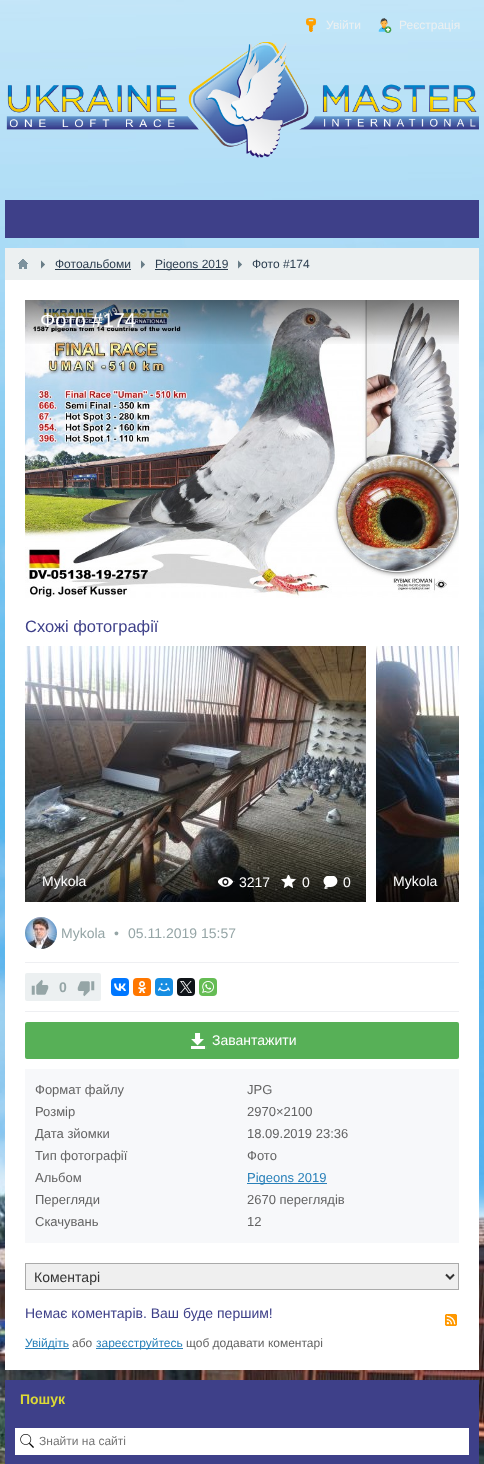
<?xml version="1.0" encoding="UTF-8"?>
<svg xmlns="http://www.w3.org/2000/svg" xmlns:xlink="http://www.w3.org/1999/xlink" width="484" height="1464">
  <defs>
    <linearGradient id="g1" gradientUnits="userSpaceOnUse" x1="242" y1="300" x2="242" y2="346"><stop offset="0" stop-color="#000000" stop-opacity="0.5" /><stop offset="1" stop-color="#000000" stop-opacity="0" /></linearGradient>
    <clipPath id="clip1"><rect x="35" y="1123" width="207" height="22" /></clipPath>
  </defs>
  <rect width="100%" height="100%" fill="#ffffff" />
  <image x="0" y="0" width="484" height="1464" xlink:href="image1.png" />
  <image x="6" y="42" width="473" height="116" xlink:href="image2.png" />
  <image x="306" y="18" width="10" height="14" xlink:href="image3.png" />
  <image x="378" y="18" width="14" height="15" xlink:href="image4.png" />
  <rect x="5" y="200" width="474" height="38" fill="#3e4089" />
  <rect x="5" y="280" width="474" height="1090" fill="#ffffff" />
  <rect x="5" y="248" width="474" height="32" fill="#ecf0f1" />
  <image x="18" y="259" width="10" height="10" xlink:href="image5.png" />
  <image x="41" y="260" width="4" height="9" xlink:href="image6.png" />
  <rect x="55" y="269" width="76" height="1" fill="#2c3e50" />
  <image x="141" y="260" width="4" height="9" xlink:href="image6.png" />
  <rect x="155" y="269" width="73" height="1" fill="#2c3e50" />
  <image x="238" y="260" width="4" height="9" xlink:href="image6.png" />
  <image x="25" y="300" width="434" height="298" xlink:href="image7.png" />
  <image x="425" y="320" width="7" height="9" xlink:href="image8.png" />
  <rect x="25" y="300" width="434" height="44" fill="url(#g1)" />
  <image x="25" y="646" width="341" height="256" xlink:href="image9.png" />
  <image x="218" y="877" width="17" height="10" xlink:href="image10.png" />
  <image x="281" y="875" width="15" height="13" xlink:href="image11.png" />
  <image x="323" y="876" width="15" height="13" xlink:href="image12.png" />
  <image x="376" y="646" width="83" height="256" xlink:href="image13.png" />
  <image x="25" y="917" width="32" height="32" xlink:href="image14.png" />
  <rect x="25" y="962" width="434" height="1" fill="#eeeff2" />
  <rect x="25" y="1011" width="434" height="1" fill="#eeeff2" />
  <rect x="25" y="973" width="76" height="28" rx="2" fill="#ecf0f1" />
  <image x="31" y="979" width="18" height="16" xlink:href="image15.png" />
  <image x="77" y="981" width="18" height="16" xlink:href="image16.png" />
  <rect x="111" y="978" width="18" height="18" rx="4" fill="#0077ff" />
  <image x="114" y="983" width="12" height="8" xlink:href="image17.png" />
  <rect x="133" y="978" width="18" height="18" rx="4" fill="#ff7700" />
  <image x="138" y="981" width="8" height="12" xlink:href="image18.png" />
  <rect x="155" y="978" width="18" height="18" rx="4" fill="#168de2" />
  <image x="158" y="983" width="12" height="9" xlink:href="image19.png" />
  <rect x="177" y="978" width="18" height="18" rx="4" fill="#0f1419" />
  <image x="180" y="981" width="12" height="12" xlink:href="image20.png" />
  <rect x="199" y="978" width="18" height="18" rx="4" fill="#65bc54" />
  <image x="202" y="981" width="12" height="12" xlink:href="image21.png" />
  <rect x="25" y="1022" width="434" height="37" rx="2" fill="#57b057" />
  <image x="191" y="1033" width="16" height="16" xlink:href="image22.png" />
  <rect x="25" y="1069" width="434" height="174" fill="#f7f8fa" />
  <rect x="247" y="1183" width="80" height="1" fill="#2980b9" />
  <rect x="25.5" y="1263.5" width="433" height="26" fill="#efefef" stroke="#aaaaaa" />
  <path d="M 446 1274.5 l 4 4 l 4 -4" fill="none" stroke="#333333" stroke-width="2" />
  <rect x="25" y="1348" width="44" height="1" fill="#2980b9" />
  <rect x="96" y="1348" width="87" height="1" fill="#2980b9" />
  <image x="445" y="1314" width="12" height="12" xlink:href="image23.png" />
  <rect x="5" y="1380" width="474" height="84" fill="#3e4089" />
  <rect x="15" y="1428" width="454" height="27" fill="#ffffff" />
  <image x="20" y="1434" width="14" height="14" xlink:href="image24.png" />
  <text x="326" y="29" style="font-family: Liberation Sans; font-size: 12px; fill: #ecf0f1">Увійти</text>
  <text x="399" y="29" style="font-family: Liberation Sans; font-size: 12px; fill: #ecf0f1">Реєстрація</text>
  <text x="55" y="268" style="font-family: Liberation Sans; font-size: 12px; fill: #2c3e50">Фотоальбоми</text>
  <text x="155" y="268" style="font-family: Liberation Sans; font-size: 12px; fill: #2c3e50">Pigeons 2019</text>
  <text x="252" y="268" style="font-family: Liberation Sans; font-size: 12px; fill: #2c3e50">Фото #174</text>
  <text x="40" y="327" style="font-family: Liberation Sans; font-size: 20px; fill: #ffffff">Фото #174</text>
  <text x="25" y="632" style="font-family: Liberation Sans; font-size: 16.5px; fill: #3e4089">Схожі фотографії</text>
  <text x="42" y="886" style="font-family: Liberation Sans; font-size: 14px; fill: #ffffff">Mykola</text>
  <text x="239" y="887" style="font-family: Liberation Sans; font-size: 14px; fill: #ffffff">3217</text>
  <text x="302" y="887" style="font-family: Liberation Sans; font-size: 14px; fill: #ffffff">0</text>
  <text x="343" y="887" style="font-family: Liberation Sans; font-size: 14px; fill: #ffffff">0</text>
  <text x="393" y="886" style="font-family: Liberation Sans; font-size: 14px; fill: #ffffff">Mykola</text>
  <text x="61" y="938" style="font-family: Liberation Sans; font-size: 14px; fill: #95a5a6">Mykola</text>
  <text x="114" y="938" style="font-family: Liberation Sans; font-size: 14px; fill: #95a5a6">•</text>
  <text x="128" y="938" style="font-family: Liberation Sans; font-size: 14px; fill: #95a5a6">05.11.2019 15:57</text>
  <text x="59" y="992" style="font-family: Liberation Sans; font-size: 14px; font-weight: bold; fill: #95a5a6">0</text>
  <text x="212" y="1045" style="font-family: Liberation Sans; font-size: 14px; fill: #ffffff">Завантажити</text>
  <text x="35" y="1094" style="font-family: Liberation Sans; font-size: 13px; fill: #636363">Формат файлу</text>
  <text x="247" y="1094" style="font-family: Liberation Sans; font-size: 13px; fill: #636363">JPG</text>
  <text x="35" y="1116" style="font-family: Liberation Sans; font-size: 13px; fill: #636363">Розмір</text>
  <text x="247" y="1116" style="font-family: Liberation Sans; font-size: 13px; fill: #636363">2970×2100</text>
  <g clip-path="url(#clip1)">
    <text x="35" y="1138" style="font-family: Liberation Sans; font-size: 13px; fill: #636363">Дата зйомки</text>
  </g>
  <text x="247" y="1138" style="font-family: Liberation Sans; font-size: 13px; fill: #636363">18.09.2019 23:36</text>
  <text x="35" y="1160" style="font-family: Liberation Sans; font-size: 13px; fill: #636363">Тип фотографії</text>
  <text x="247" y="1160" style="font-family: Liberation Sans; font-size: 13px; fill: #636363">Фото</text>
  <text x="35" y="1182" style="font-family: Liberation Sans; font-size: 13px; fill: #636363">Альбом</text>
  <text x="247" y="1182" style="font-family: Liberation Sans; font-size: 13px; fill: #2980b9">Pigeons 2019</text>
  <text x="35" y="1204" style="font-family: Liberation Sans; font-size: 13px; fill: #636363">Перегляди</text>
  <text x="247" y="1204" style="font-family: Liberation Sans; font-size: 13px; fill: #636363">2670 переглядів</text>
  <text x="35" y="1226" style="font-family: Liberation Sans; font-size: 13px; fill: #636363">Скачувань</text>
  <text x="247" y="1226" style="font-family: Liberation Sans; font-size: 13px; fill: #636363">12</text>
  <text x="34" y="1282" style="font-family: Liberation Sans; font-size: 14px; fill: #333333">Коментарі</text>
  <text x="25" y="1318" style="font-family: Liberation Sans; font-size: 14px; fill: #3e4089">Немає коментарів. Ваш буде першим!</text>
  <text x="25" y="1347" style="font-family: Liberation Sans; font-size: 12px; fill: #2980b9">Увійдіть</text>
  <text x="72" y="1347" style="font-family: Liberation Sans; font-size: 12px; fill: #636363">або</text>
  <text x="96" y="1347" style="font-family: Liberation Sans; font-size: 12px; fill: #2980b9">зареєструйтесь</text>
  <text x="186" y="1347" style="font-family: Liberation Sans; font-size: 12px; fill: #636363">щоб додавати коментарі</text>
  <text x="20" y="1404" style="font-family: Liberation Sans; font-size: 14px; font-weight: bold; fill: #dcd936">Пошук</text>
  <text x="39" y="1445" style="font-family: Liberation Sans; font-size: 12px; fill: #757575">Знайти на сайті</text>
</svg>
